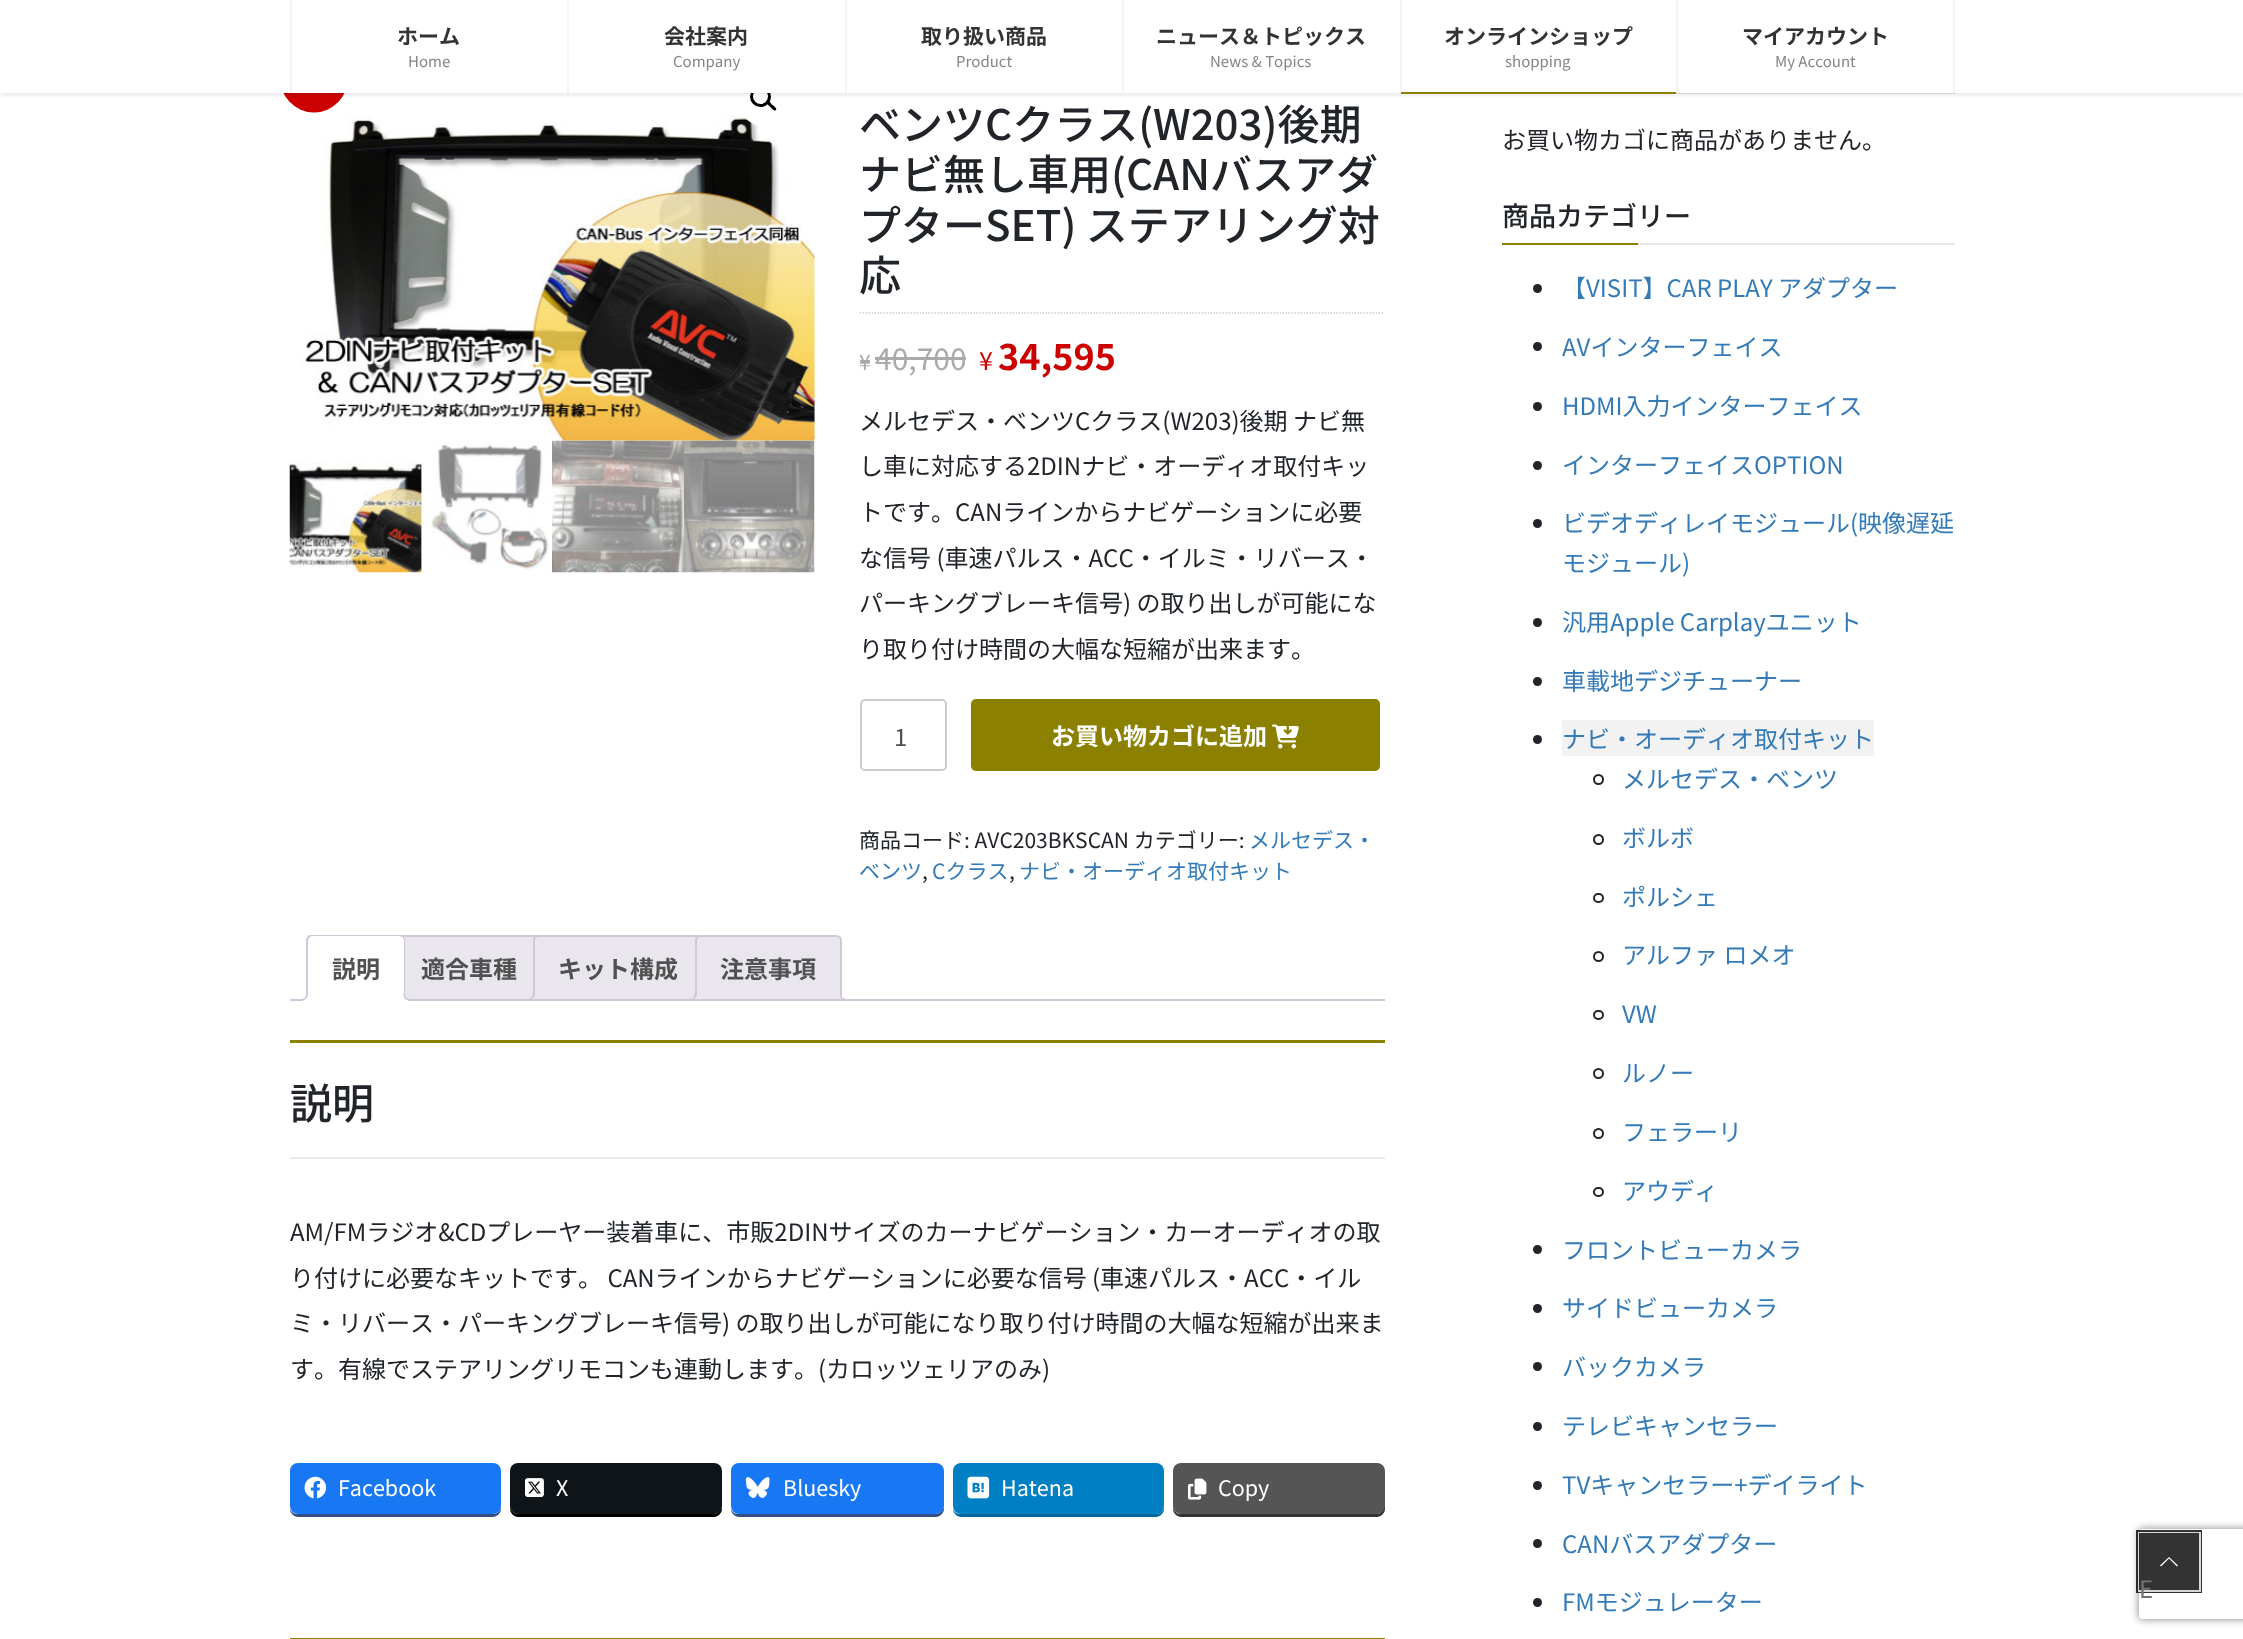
<?xml version="1.0" encoding="UTF-8"?>
<svg xmlns="http://www.w3.org/2000/svg" xmlns:xlink="http://www.w3.org/1999/xlink" width="2243" height="1639">
  <style>*{font-kerning:none!important;font-variant-ligatures:none!important}</style>
  <defs>
    <clipPath id="clip1"><rect x="290" y="935" width="1095" height="66" /></clipPath>
    <clipPath id="clip2"><path d="M 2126 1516 h 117 v 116 h -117 z m 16 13 h 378 c 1.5 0 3 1.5 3 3 v 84 c 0 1.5 -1.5 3 -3 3 h -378 c -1.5 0 -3 -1.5 -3 -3 v -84 c 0 -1.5 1.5 -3 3 -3 z" clip-rule="evenodd" /></clipPath>
  </defs>
  <rect width="100%" height="100%" fill="#ffffff" />
  <ellipse cx="314" cy="75" rx="35" ry="37.5" fill="#cc0000" />
  <image x="299" y="115" width="516" height="326" xlink:href="image1.png" />
  <circle cx="764" cy="99" r="27" fill="#ffffff" />
  <circle cx="760.5" cy="96.5" r="9" fill="none" stroke="#000000" stroke-width="3" />
  <path d="M 767.5 101.5 c 1.5 -1.5 4 2.5 5 3.5 c 1 0.5 5 3.5 3.5 5 c -2 2 -4.5 -2 -5.5 -3 c -1 -1 -5 -3.5 -3 -5.5 z" fill="#000000" />
  <rect x="1676" y="93" width="279" height="1" fill="#e6e6e6" />
  <rect y="2" width="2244" height="93" fill="#000000" fill-opacity="0.1" filter="blur(2px)" />
  <rect width="2243" height="93" fill="#ffffff" />
  <rect x="290" width="2" height="93" fill="#f5f5f5" />
  <rect x="567" width="2" height="93" fill="#f5f5f5" />
  <rect x="845" width="2" height="93" fill="#f5f5f5" />
  <rect x="1122" width="2" height="93" fill="#f5f5f5" />
  <rect x="1400" width="2" height="93" fill="#f5f5f5" />
  <rect x="1401" y="92" width="275" height="2" fill="#8b8000" />
  <rect x="1953" width="2" height="93" fill="#f5f5f5" />
  <rect x="1676" width="2" height="93" fill="#f5f5f5" />
  <image x="289" y="461" width="133" height="112" xlink:href="image2.png" />
  <image x="421" y="441" width="128" height="131" xlink:href="image3.png" />
  <image x="552" y="440" width="132" height="133" xlink:href="image4.png" />
  <image x="684" y="440" width="131" height="133" xlink:href="image5.png" />
  <path d="M 859.5 313 h 525" fill="none" stroke="#cccccc" stroke-width="1.5" stroke-dasharray="1.5 1.5" />
  <rect x="860" y="360" width="10" height="3" fill="#aaaaaa" />
  <rect x="875" y="357" width="91" height="3" fill="#aaaaaa" />
  <rect x="861" y="700" width="85" height="70" rx="4" fill="none" stroke="#cccccc" stroke-width="2" />
  <rect x="971" y="699" width="409" height="72" rx="5" fill="#8b8000" />
  <image x="1272" y="724" width="27" height="25" xlink:href="image6.png" />
  <path d="M 402 936 h 135 c 3 0 5 2 5 5 v 59 h -145 v -59 c 0 -3 2 -5 5 -5 z" fill="#e9e6ed" stroke="#cfc8d8" stroke-width="2" />
  <path d="M 539 936 h 159 c 3 0 5 2 5 5 v 59 h -169 v -59 c 0 -3 2 -5 5 -5 z" fill="#e9e6ed" stroke="#cfc8d8" stroke-width="2" />
  <g clip-path="url(#clip1)">
    <path d="M 530 1000 v 4 c 5.5 0 7 -3 7 -8 h -3 c -0.5 2 -2 3.5 -4 4 z" fill="#e9e6ed" />
  </g>
  <path d="M 526.5 993 h 7.5 c 0 5.5 -2 7.5 -7.5 7.5 z m 0 0 h 6 c 0 4.5 -1.5 6 -6 6 z" fill="#cfc8d8" fill-rule="evenodd" />
  <path d="M 701 936 h 135 c 3 0 5 2 5 5 v 59 h -145 v -59 c 0 -3 2 -5 5 -5 z" fill="#e9e6ed" stroke="#cfc8d8" stroke-width="2" />
  <g clip-path="url(#clip1)">
    <path d="M 692 1000 v 4 c 5.5 0 7 -3 7 -8 h -3 c -0.5 2 -2 3.5 -4 4 z" fill="#e9e6ed" />
  </g>
  <path d="M 688.5 993 h 7.5 c 0 5.5 -2 7.5 -7.5 7.5 z m 0 0 h 6 c 0 4.5 -1.5 6 -6 6 z" fill="#cfc8d8" fill-rule="evenodd" />
  <g clip-path="url(#clip1)">
    <path d="M 837 996 c 0 6 2 8 8 8 v -3.5 c -2.5 -0.5 -4 -2 -5 -4.5 z" fill="#e9e6ed" />
  </g>
  <path d="M 840 993 h 7.5 v 7.5 c -4 0 -7.5 -1.5 -7.5 -6 z m 1.5 0 h 6 v 6 c -3 0 -6 -1 -6 -4.5 z" fill="#cfc8d8" fill-rule="evenodd" />
  <rect x="290" y="999" width="1095" height="2" fill="#cfc8d8" />
  <path d="M 312 935 h 87 c 3.5 0 6 2.5 6 6 v 60 h -99 v -60 c 0 -3.5 2.5 -6 6 -6 z" fill="#ffffff" />
  <g clip-path="url(#clip1)">
    <path d="M 312 936 c -1 0 -2 1 -3 2 l -1 -2 l 2 -2 h 91 l 2 2 l -1 1 l -3 -1 z" fill="#cfc8d8" />
  </g>
  <path d="M 405 1000 v -60 c 0 -1 -1 -3 -2 -4 l -1 1 l 2 3 v 59 z" fill="#cfc8d8" />
  <path d="M 306 940 v 60 l 2 -2 v -58 l 1 -2 l -1 -2 c -1 1 -2 3 -2 4 z" fill="#cfc8d8" />
  <g clip-path="url(#clip1)">
    <path d="M 303 1000.5 v 3.5 c 6 0 8 -2 8 -8 h -3.5 c -0.5 2 -2.5 4 -4.5 4.5 z" fill="#ffffff" />
  </g>
  <path d="M 300 993 h 7.5 c 0 5.5 -2 7.5 -7.5 7.5 z m 0 0 h 6 c 0 4.5 -1.5 6 -6 6 z" fill="#cfc8d8" fill-rule="evenodd" />
  <g clip-path="url(#clip1)">
    <path d="M 401 996 c 0 5 1.5 8 7 8 v -3.5 c -2 -0.5 -4 -2.5 -4.5 -4.5 z" fill="#ffffff" />
  </g>
  <path d="M 403.5 993 h 7.5 v 7.5 c -4 0 -7.5 -1.5 -7.5 -6 z m 1.5 0 h 6 v 6 c -3 0 -6 -1 -6 -4.5 z" fill="#cfc8d8" fill-rule="evenodd" />
  <rect x="290" y="1040" width="1095" height="3" fill="#8b8000" />
  <rect x="290" y="1157" width="1095" height="2" fill="#e9e9e9" />
  <path d="M 290 1509 c 0 4 4 8 8 8 h 195 c 4 0 8 -4 8 -8 v -3 c 0 4 -3 8 -7 8 h -197 c -3 0 -6 -2 -7 -5 z" fill="#344e84" />
  <rect x="290" y="1463" width="211" height="51" rx="8" fill="#1877f2" />
  <image x="304" y="1476" width="23" height="23" xlink:href="image7.png" />
  <path d="M 510 1506 v 3 c 0 4 4 8 8 8 h 196 c 4 0 8 -4 8 -8 v -35 v -3 v 35 c 0 4 -4 8 -8 8 h -196 c -5 0 -8 -4 -8 -8 z" fill="#000000" />
  <rect x="510" y="1463" width="212" height="51" rx="8" fill="#0f1419" />
  <image x="525" y="1478" width="19" height="19" xlink:href="image8.png" />
  <path d="M 731 1509 c 0 4 4 8 8 8 h 197 c 4 0 8 -4 8 -8 v -35 v -3 v 35 c 0 4 -4 8 -8 8 h -198 c -3 0 -6 -2 -7 -5 z" fill="#344e84" />
  <rect x="731" y="1463" width="213" height="51" rx="8" fill="#1877f2" />
  <image x="745" y="1477" width="25" height="21" xlink:href="image9.png" />
  <path d="M 953 1509 c 0 4 4 8 8 8 h 195 c 4 0 8 -4 8 -8 v -3 c 0 4 -3 8 -8 8 h -196 c -3 0 -6 -2 -7 -5 z" fill="#00679f" />
  <rect x="953" y="1463" width="211" height="51" rx="8" fill="#007fc5" />
  <image x="967" y="1476" width="23" height="23" xlink:href="image10.png" />
  <path d="M 1173 1506 v 3 c 0 4 4 8 8 8 h 196 c 4 0 8 -4 8 -8 v -35 l -1 -3 v 35 c 0 4 -3 8 -7 8 h -197 c -4 0 -7 -4 -7 -8 z" fill="#333333" />
  <rect x="1173" y="1463" width="212" height="51" rx="8" fill="#555555" />
  <image x="1188" y="1478" width="19" height="22" xlink:href="image11.png" />
  <rect x="290" y="1638" width="1095" height="1" fill="#8b8000" />
  <rect x="1638" y="243" width="317" height="2" fill="#e6e6e6" />
  <rect x="1502" y="243" width="136" height="2" fill="#8b8000" />
  <circle cx="1537.5" cy="288.5" r="4.5" fill="#212529" />
  <circle cx="1537.5" cy="346.5" r="4.5" fill="#212529" />
  <circle cx="1537.5" cy="406.5" r="4.5" fill="#212529" />
  <circle cx="1537.5" cy="465.5" r="4.5" fill="#212529" />
  <circle cx="1537.5" cy="523.5" r="4.5" fill="#212529" />
  <circle cx="1537.5" cy="622.5" r="4.5" fill="#212529" />
  <circle cx="1537.5" cy="681.5" r="4.5" fill="#212529" />
  <circle cx="1537.5" cy="739.5" r="4.5" fill="#212529" />
  <rect x="1562" y="720" width="312" height="36" fill="#f2f2f2" />
  <circle cx="1598.5" cy="779.5" r="4.5" fill="none" stroke="#212529" stroke-width="2" />
  <circle cx="1598.5" cy="839.5" r="4.5" fill="none" stroke="#212529" stroke-width="2" />
  <rect x="1594" y="894" width="9" height="8" rx="4" fill="none" stroke="#212529" stroke-width="2" />
  <circle cx="1598.5" cy="956.5" r="4.5" fill="none" stroke="#212529" stroke-width="2" />
  <rect x="1594" y="1011" width="9" height="8" rx="4" fill="none" stroke="#212529" stroke-width="2" />
  <circle cx="1598.5" cy="1073.5" r="4.5" fill="none" stroke="#212529" stroke-width="2" />
  <circle cx="1598.5" cy="1133.5" r="4.5" fill="none" stroke="#212529" stroke-width="2" />
  <rect x="1594" y="1188" width="9" height="8" rx="4" fill="none" stroke="#212529" stroke-width="2" />
  <circle cx="1537.5" cy="1249.5" r="4.5" fill="#212529" />
  <circle cx="1537.5" cy="1308.5" r="4.5" fill="#212529" />
  <circle cx="1537.5" cy="1366.5" r="4.5" fill="#212529" />
  <circle cx="1537.5" cy="1426.5" r="4.5" fill="#212529" />
  <circle cx="1537.5" cy="1485.5" r="4.5" fill="#212529" />
  <circle cx="1537.5" cy="1543.5" r="4.5" fill="#212529" />
  <circle cx="1537.5" cy="1602.5" r="4.5" fill="#212529" />
  <g clip-path="url(#clip2)">
    <rect x="2139" y="1529" width="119" height="90" rx="3" fill="#808080" filter="blur(4px)" />
  </g>
  <rect x="2137.5" y="1531.5" width="63" height="60" fill="none" stroke="#000000" stroke-opacity="0.8" stroke-width="3" />
  <rect x="2139" y="1533" width="61" height="58" fill="none" stroke="#ffffff" stroke-opacity="0.8" stroke-width="2" />
  <rect x="2139" y="1533" width="60" height="57" fill="#333333" />
  <path d="M 2178 1565.5 l -1 1 l -8 -8 l -8 8 l -1 -1 l 9 -8.5 z" fill="#ffffff" />
  <text x="397" y="44" style="font-family: Noto Sans JP; font-size: 21px; font-weight: bold; fill: #333333">ホーム</text>
  <text x="408" y="67" style="font-family: Noto Sans JP; font-size: 15px; fill: #858585">Home</text>
  <text x="664" y="44" style="font-family: Noto Sans JP; font-size: 21px; font-weight: bold; fill: #333333">会社案内</text>
  <text x="673" y="67" style="font-family: Noto Sans JP; font-size: 15px; fill: #858585">Company</text>
  <text x="921" y="44" style="font-family: Noto Sans JP; font-size: 21px; font-weight: bold; fill: #333333">取り扱い商品</text>
  <text x="956" y="67" style="font-family: Noto Sans JP; font-size: 15px; fill: #858585">Product</text>
  <text x="1156" y="44" style="font-family: Noto Sans JP; font-size: 21px; font-weight: bold; fill: #333333">ニュース＆トピックス</text>
  <text x="1210" y="67" style="font-family: Noto Sans JP; font-size: 15px; fill: #858585">News &amp; Topics</text>
  <text x="1444" y="44" style="font-family: Noto Sans JP; font-size: 21px; font-weight: bold; fill: #333333">オンラインショップ</text>
  <text x="1505" y="67" style="font-family: Noto Sans JP; font-size: 15px; fill: #858585">shopping</text>
  <text x="1742" y="44" style="font-family: Noto Sans JP; font-size: 21px; font-weight: bold; fill: #333333">マイアカウント</text>
  <text x="1775" y="67" style="font-family: Noto Sans JP; font-size: 15px; fill: #858585">My Account</text>
  <text x="859" y="140" style="font-family: Noto Sans JP; font-size: 42px; font-weight: 500; fill: #212529">ベンツCクラス(W203)後期</text>
  <text x="859" y="190" style="font-family: Noto Sans JP; font-size: 42px; font-weight: 500; fill: #212529">ナビ無し車用(CANバスアダ</text>
  <text x="859" y="241" style="font-family: Noto Sans JP; font-size: 42px; font-weight: 500; fill: #212529">プターSET) ステアリング対</text>
  <text x="859" y="291" style="font-family: Noto Sans JP; font-size: 42px; font-weight: 500; fill: #212529">応</text>
  <text x="859" y="370" style="font-family: Noto Sans JP; font-size: 21px; fill: #aaaaaa">¥</text>
  <text x="875" y="370" style="font-family: Noto Sans JP; font-size: 30px; fill: #aaaaaa">40,700</text>
  <text x="979" y="370" style="font-family: Noto Sans JP; font-size: 25px; fill: #cc0000">¥</text>
  <text x="998" y="370" style="font-family: Noto Sans JP; font-size: 36px; font-weight: bold; fill: #cc0000">34,595</text>
  <text x="859" y="430" style="font-family: Noto Sans JP; font-size: 24px; fill: #212529">メルセデス・ベンツCクラス(W203)後期 ナビ無</text>
  <text x="859" y="475" style="font-family: Noto Sans JP; font-size: 24px; fill: #212529">し車に対応する2DINナビ・オーディオ取付キッ</text>
  <text x="859" y="521" style="font-family: Noto Sans JP; font-size: 24px; fill: #212529">トです。CANラインからナビゲーションに必要</text>
  <text x="859" y="567" style="font-family: Noto Sans JP; font-size: 24px; fill: #212529">な信号 (車速パルス・ACC・イルミ・リバース・</text>
  <text x="859" y="612" style="font-family: Noto Sans JP; font-size: 24px; fill: #212529">パーキングブレーキ信号) の取り出しが可能にな</text>
  <text x="859" y="658" style="font-family: Noto Sans JP; font-size: 24px; fill: #212529">り取り付け時間の大幅な短縮が出来ます。</text>
  <text x="894" y="746" style="font-family: Noto Sans JP; font-size: 24px; fill: #495057">1</text>
  <text x="1051" y="745" style="font-family: Noto Sans JP; font-size: 24px; font-weight: bold; fill: #ffffff">お買い物カゴに追加</text>
  <text x="859" y="848" style="font-family: Noto Sans JP; font-size: 21px; fill: #212529">商品コード: AVC203BKSCAN カテゴリー:</text>
  <text x="1249" y="848" style="font-family: Noto Sans JP; font-size: 21px; fill: #337ab7">メルセデス・</text>
  <text x="859" y="879" style="font-family: Noto Sans JP; font-size: 21px; fill: #337ab7">ベンツ</text>
  <text x="922" y="879" style="font-family: Noto Sans JP; font-size: 21px; fill: #212529">,</text>
  <text x="932" y="879" style="font-family: Noto Sans JP; font-size: 21px; fill: #337ab7">Cクラス</text>
  <text x="1009" y="879" style="font-family: Noto Sans JP; font-size: 21px; fill: #212529">,</text>
  <text x="1019" y="879" style="font-family: Noto Sans JP; font-size: 21px; fill: #337ab7">ナビ・オーディオ取付キット</text>
  <text x="332" y="978" style="font-family: Noto Sans JP; font-size: 24px; font-weight: bold; fill: #515151">説明</text>
  <text x="421" y="978" style="font-family: Noto Sans JP; font-size: 24px; font-weight: bold; fill: #515151">適合車種</text>
  <text x="558" y="978" style="font-family: Noto Sans JP; font-size: 24px; font-weight: bold; fill: #515151">キット構成</text>
  <text x="720" y="978" style="font-family: Noto Sans JP; font-size: 24px; font-weight: bold; fill: #515151">注意事項</text>
  <text x="290" y="1119" style="font-family: Noto Sans JP; font-size: 42px; font-weight: 500; fill: #212529">説明</text>
  <text x="290" y="1241" style="font-family: Noto Sans JP; font-size: 24px; fill: #212529">AM/FMラジオ&amp;CDプレーヤー装着車に、市販2DINサイズのカーナビゲーション・カーオーディオの取</text>
  <text x="290" y="1287" style="font-family: Noto Sans JP; font-size: 24px; fill: #212529">り付けに必要なキットです。 CANラインからナビゲーションに必要な信号 (車速パルス・ACC・イル</text>
  <text x="290" y="1332" style="font-family: Noto Sans JP; font-size: 24px; fill: #212529">ミ・リバース・パーキングブレーキ信号) の取り出しが可能になり取り付け時間の大幅な短縮が出来ま</text>
  <text x="290" y="1378" style="font-family: Noto Sans JP; font-size: 24px; fill: #212529">す。有線でステアリングリモコンも連動します。(カロッツェリアのみ)</text>
  <text x="338" y="1496" style="font-family: Noto Sans JP; font-size: 21.5px; fill: #ffffff">Facebook</text>
  <text x="556" y="1496" style="font-family: Noto Sans JP; font-size: 21.5px; fill: #ffffff">X</text>
  <text x="783" y="1496" style="font-family: Noto Sans JP; font-size: 21.5px; fill: #ffffff">Bluesky</text>
  <text x="1001" y="1496" style="font-family: Noto Sans JP; font-size: 21.5px; fill: #ffffff">Hatena</text>
  <text x="1218" y="1496" style="font-family: Noto Sans JP; font-size: 21.5px; fill: #ffffff">Copy</text>
  <text x="1502" y="149" style="font-family: Noto Sans JP; font-size: 24px; fill: #212529">お買い物カゴに商品がありません。</text>
  <text x="1502" y="226" style="font-family: Noto Sans JP; font-size: 27px; font-weight: 500; fill: #212529">商品カテゴリー</text>
  <text x="1562" y="297" style="font-family: Noto Sans JP; font-size: 24px; fill: #337ab7">【VISIT】CAR PLAY アダプター</text>
  <text x="1562" y="356" style="font-family: Noto Sans JP; font-size: 24px; fill: #337ab7">AVインターフェイス</text>
  <text x="1562" y="415" style="font-family: Noto Sans JP; font-size: 24px; fill: #337ab7">HDMI入力インターフェイス</text>
  <text x="1562" y="474" style="font-family: Noto Sans JP; font-size: 24px; fill: #337ab7">インターフェイスOPTION</text>
  <text x="1562" y="532" style="font-family: Noto Sans JP; font-size: 24px; fill: #337ab7">ビデオディレイモジュール(映像遅延</text>
  <text x="1562" y="572" style="font-family: Noto Sans JP; font-size: 24px; fill: #337ab7">モジュール)</text>
  <text x="1562" y="631" style="font-family: Noto Sans JP; font-size: 24px; fill: #337ab7">汎用Apple Carplayユニット</text>
  <text x="1562" y="690" style="font-family: Noto Sans JP; font-size: 24px; fill: #337ab7">車載地デジチューナー</text>
  <text x="1562" y="748" style="font-family: Noto Sans JP; font-size: 24px; fill: #337ab7">ナビ・オーディオ取付キット</text>
  <text x="1622" y="788" style="font-family: Noto Sans JP; font-size: 24px; fill: #337ab7">メルセデス・ベンツ</text>
  <text x="1622" y="847" style="font-family: Noto Sans JP; font-size: 24px; fill: #337ab7">ボルボ</text>
  <text x="1622" y="906" style="font-family: Noto Sans JP; font-size: 24px; fill: #337ab7">ポルシェ</text>
  <text x="1622" y="964" style="font-family: Noto Sans JP; font-size: 24px; fill: #337ab7">アルファ ロメオ</text>
  <text x="1622" y="1023" style="font-family: Noto Sans JP; font-size: 24px; fill: #337ab7">VW</text>
  <text x="1622" y="1082" style="font-family: Noto Sans JP; font-size: 24px; fill: #337ab7">ルノー</text>
  <text x="1622" y="1141" style="font-family: Noto Sans JP; font-size: 24px; fill: #337ab7">フェラーリ</text>
  <text x="1622" y="1200" style="font-family: Noto Sans JP; font-size: 24px; fill: #337ab7">アウディ</text>
  <text x="1562" y="1259" style="font-family: Noto Sans JP; font-size: 24px; fill: #337ab7">フロントビューカメラ</text>
  <text x="1562" y="1317" style="font-family: Noto Sans JP; font-size: 24px; fill: #337ab7">サイドビューカメラ</text>
  <text x="1562" y="1376" style="font-family: Noto Sans JP; font-size: 24px; fill: #337ab7">バックカメラ</text>
  <text x="1562" y="1435" style="font-family: Noto Sans JP; font-size: 24px; fill: #337ab7">テレビキャンセラー</text>
  <text x="1562" y="1494" style="font-family: Noto Sans JP; font-size: 24px; fill: #337ab7">TVキャンセラー+デイライト</text>
  <text x="1562" y="1553" style="font-family: Noto Sans JP; font-size: 24px; fill: #337ab7">CANバスアダプター</text>
  <text x="1562" y="1611" style="font-family: Noto Sans JP; font-size: 24px; fill: #337ab7">FMモジュレーター</text>
  <text x="2139" y="1598" style="font-family: Noto Sans JP; font-size: 24px; fill: #737373">E</text>
</svg>
